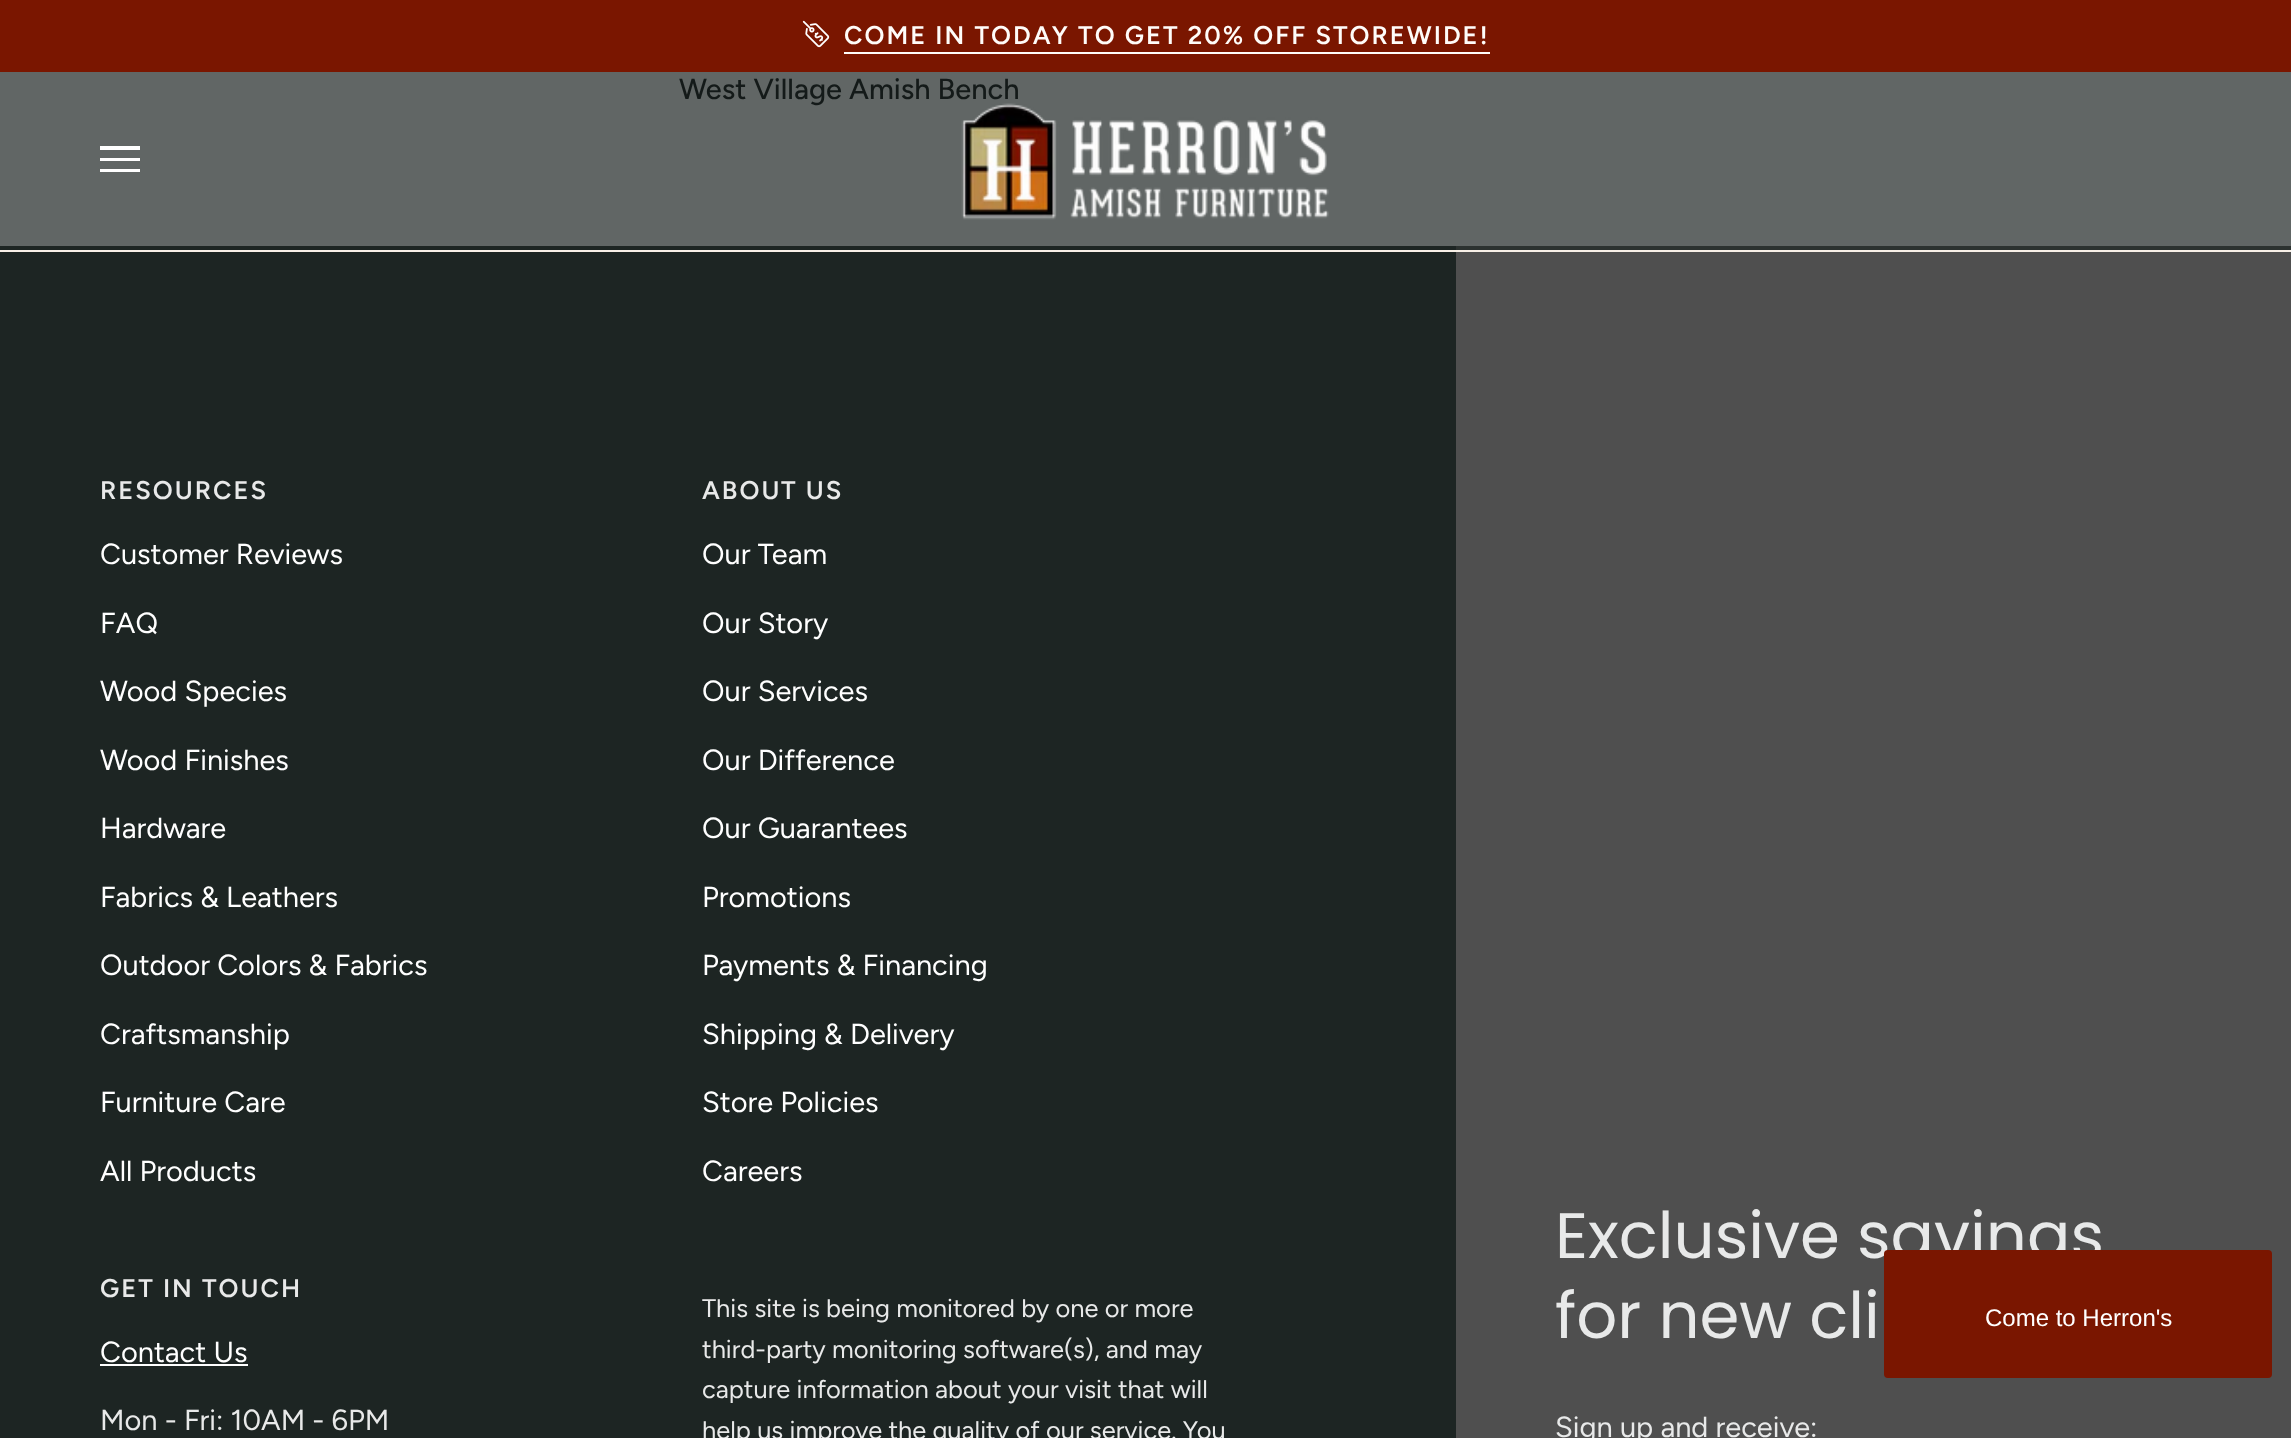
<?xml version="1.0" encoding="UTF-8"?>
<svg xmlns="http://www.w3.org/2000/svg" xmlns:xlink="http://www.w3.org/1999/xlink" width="2291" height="1438">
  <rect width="100%" height="100%" fill="#616665" />
  <rect width="2291" height="72" fill="#7a1600" />
  <image x="802" y="20" width="28" height="28" xlink:href="image1.png" />
  <rect x="844" y="52" width="646" height="2" fill="#fffcf9" />
  <rect y="250" width="2291" height="2" fill="#f8f0e7" />
  <path d="M 100 146 h 40 v 4 h -40 z m 0 12 h 40 v 3 h -40 z m 0 11 h 40 v 3 h -40 z" fill="#ffffff" />
  <rect y="252" width="1456" height="1186" fill="#1d2523" />
  <rect y="246" width="1456" height="4" fill="#1d2523" />
  <rect x="100" y="1364" width="148" height="2" fill="#ffffff" />
  <rect x="1456" y="252" width="835" height="1186" fill="#4f4f4f" />
  <rect x="1456" y="246" width="835" height="4" fill="#2c3230" />
  <text x="844" y="44" style="font-family: Figtree; font-size: 25.5px; font-weight: 600; letter-spacing: 2px; fill: #fffcf9">COME IN TODAY TO GET 20% OFF STOREWIDE!</text>
  <text x="679" y="99" style="font-family: Figtree; font-size: 29px; font-weight: 500; fill: #141a19">West Village Amish Bench</text>
  <image x="961" y="103" width="368" height="117" xlink:href="image2.png" />
  <text x="100" y="499" style="font-family: Figtree; font-size: 25.5px; font-weight: 600; letter-spacing: 2px; fill: #e8e9e9">RESOURCES</text>
  <text x="100" y="564" style="font-family: Figtree; font-size: 29px; fill: #ffffff">Customer Reviews</text>
  <text x="100" y="633" style="font-family: Figtree; font-size: 29px; fill: #ffffff">FAQ</text>
  <text x="100" y="701" style="font-family: Figtree; font-size: 29px; fill: #ffffff">Wood Species</text>
  <text x="100" y="770" style="font-family: Figtree; font-size: 29px; fill: #ffffff">Wood Finishes</text>
  <text x="100" y="838" style="font-family: Figtree; font-size: 29px; fill: #ffffff">Hardware</text>
  <text x="100" y="907" style="font-family: Figtree; font-size: 29px; fill: #ffffff">Fabrics &amp; Leathers</text>
  <text x="100" y="975" style="font-family: Figtree; font-size: 29px; fill: #ffffff">Outdoor Colors &amp; Fabrics</text>
  <text x="100" y="1044" style="font-family: Figtree; font-size: 29px; fill: #ffffff">Craftsmanship</text>
  <text x="100" y="1112" style="font-family: Figtree; font-size: 29px; fill: #ffffff">Furniture Care</text>
  <text x="100" y="1181" style="font-family: Figtree; font-size: 29px; fill: #ffffff">All Products</text>
  <text x="702" y="499" style="font-family: Figtree; font-size: 25.5px; font-weight: 600; letter-spacing: 2px; fill: #e8e9e9">ABOUT US</text>
  <text x="702" y="564" style="font-family: Figtree; font-size: 29px; fill: #ffffff">Our Team</text>
  <text x="702" y="633" style="font-family: Figtree; font-size: 29px; fill: #ffffff">Our Story</text>
  <text x="702" y="701" style="font-family: Figtree; font-size: 29px; fill: #ffffff">Our Services</text>
  <text x="702" y="770" style="font-family: Figtree; font-size: 29px; fill: #ffffff">Our Difference</text>
  <text x="702" y="838" style="font-family: Figtree; font-size: 29px; fill: #ffffff">Our Guarantees</text>
  <text x="702" y="907" style="font-family: Figtree; font-size: 29px; fill: #ffffff">Promotions</text>
  <text x="702" y="975" style="font-family: Figtree; font-size: 29px; fill: #ffffff">Payments &amp; Financing</text>
  <text x="702" y="1044" style="font-family: Figtree; font-size: 29px; fill: #ffffff">Shipping &amp; Delivery</text>
  <text x="702" y="1112" style="font-family: Figtree; font-size: 29px; fill: #ffffff">Store Policies</text>
  <text x="702" y="1181" style="font-family: Figtree; font-size: 29px; fill: #ffffff">Careers</text>
  <text x="100" y="1297" style="font-family: Figtree; font-size: 25.5px; font-weight: 600; letter-spacing: 2px; fill: #e8e9e9">GET IN TOUCH</text>
  <text x="100" y="1362" style="font-family: Figtree; font-size: 29px; fill: #ffffff">Contact Us</text>
  <text x="100" y="1430" style="font-family: Figtree; font-size: 29px; fill: #e8e9e9">Mon - Fri: 10AM - 6PM</text>
  <text x="702" y="1317" style="font-family: Figtree; font-size: 25.5px; fill: #e8e9e9">This site is being monitored by one or more</text>
  <text x="702" y="1358" style="font-family: Figtree; font-size: 25.5px; fill: #e8e9e9">third-party monitoring software(s), and may</text>
  <text x="702" y="1398" style="font-family: Figtree; font-size: 25.5px; fill: #e8e9e9">capture information about your visit that will</text>
  <text x="702" y="1439" style="font-family: Figtree; font-size: 25.5px; fill: #e8e9e9">help us improve the quality of our service. You</text>
  <text x="1555" y="1258" style="font-family: Poppins; font-size: 64.25px; fill: #e8e9e9">Exclusive savings</text>
  <text x="1555" y="1338" style="font-family: Poppins; font-size: 64.25px; fill: #e8e9e9">for new cli</text>
  <text x="1555" y="1437" style="font-family: Figtree; font-size: 29px; fill: #e8e9e9">Sign up and receive:</text>
  <rect x="1884" y="1250" width="388" height="128" rx="4" fill="#7a1600" />
  <text x="1985" y="1326" style="font-family: Liberation Sans; font-size: 24px; fill: #ffffff">Come to Herron's</text>
</svg>
